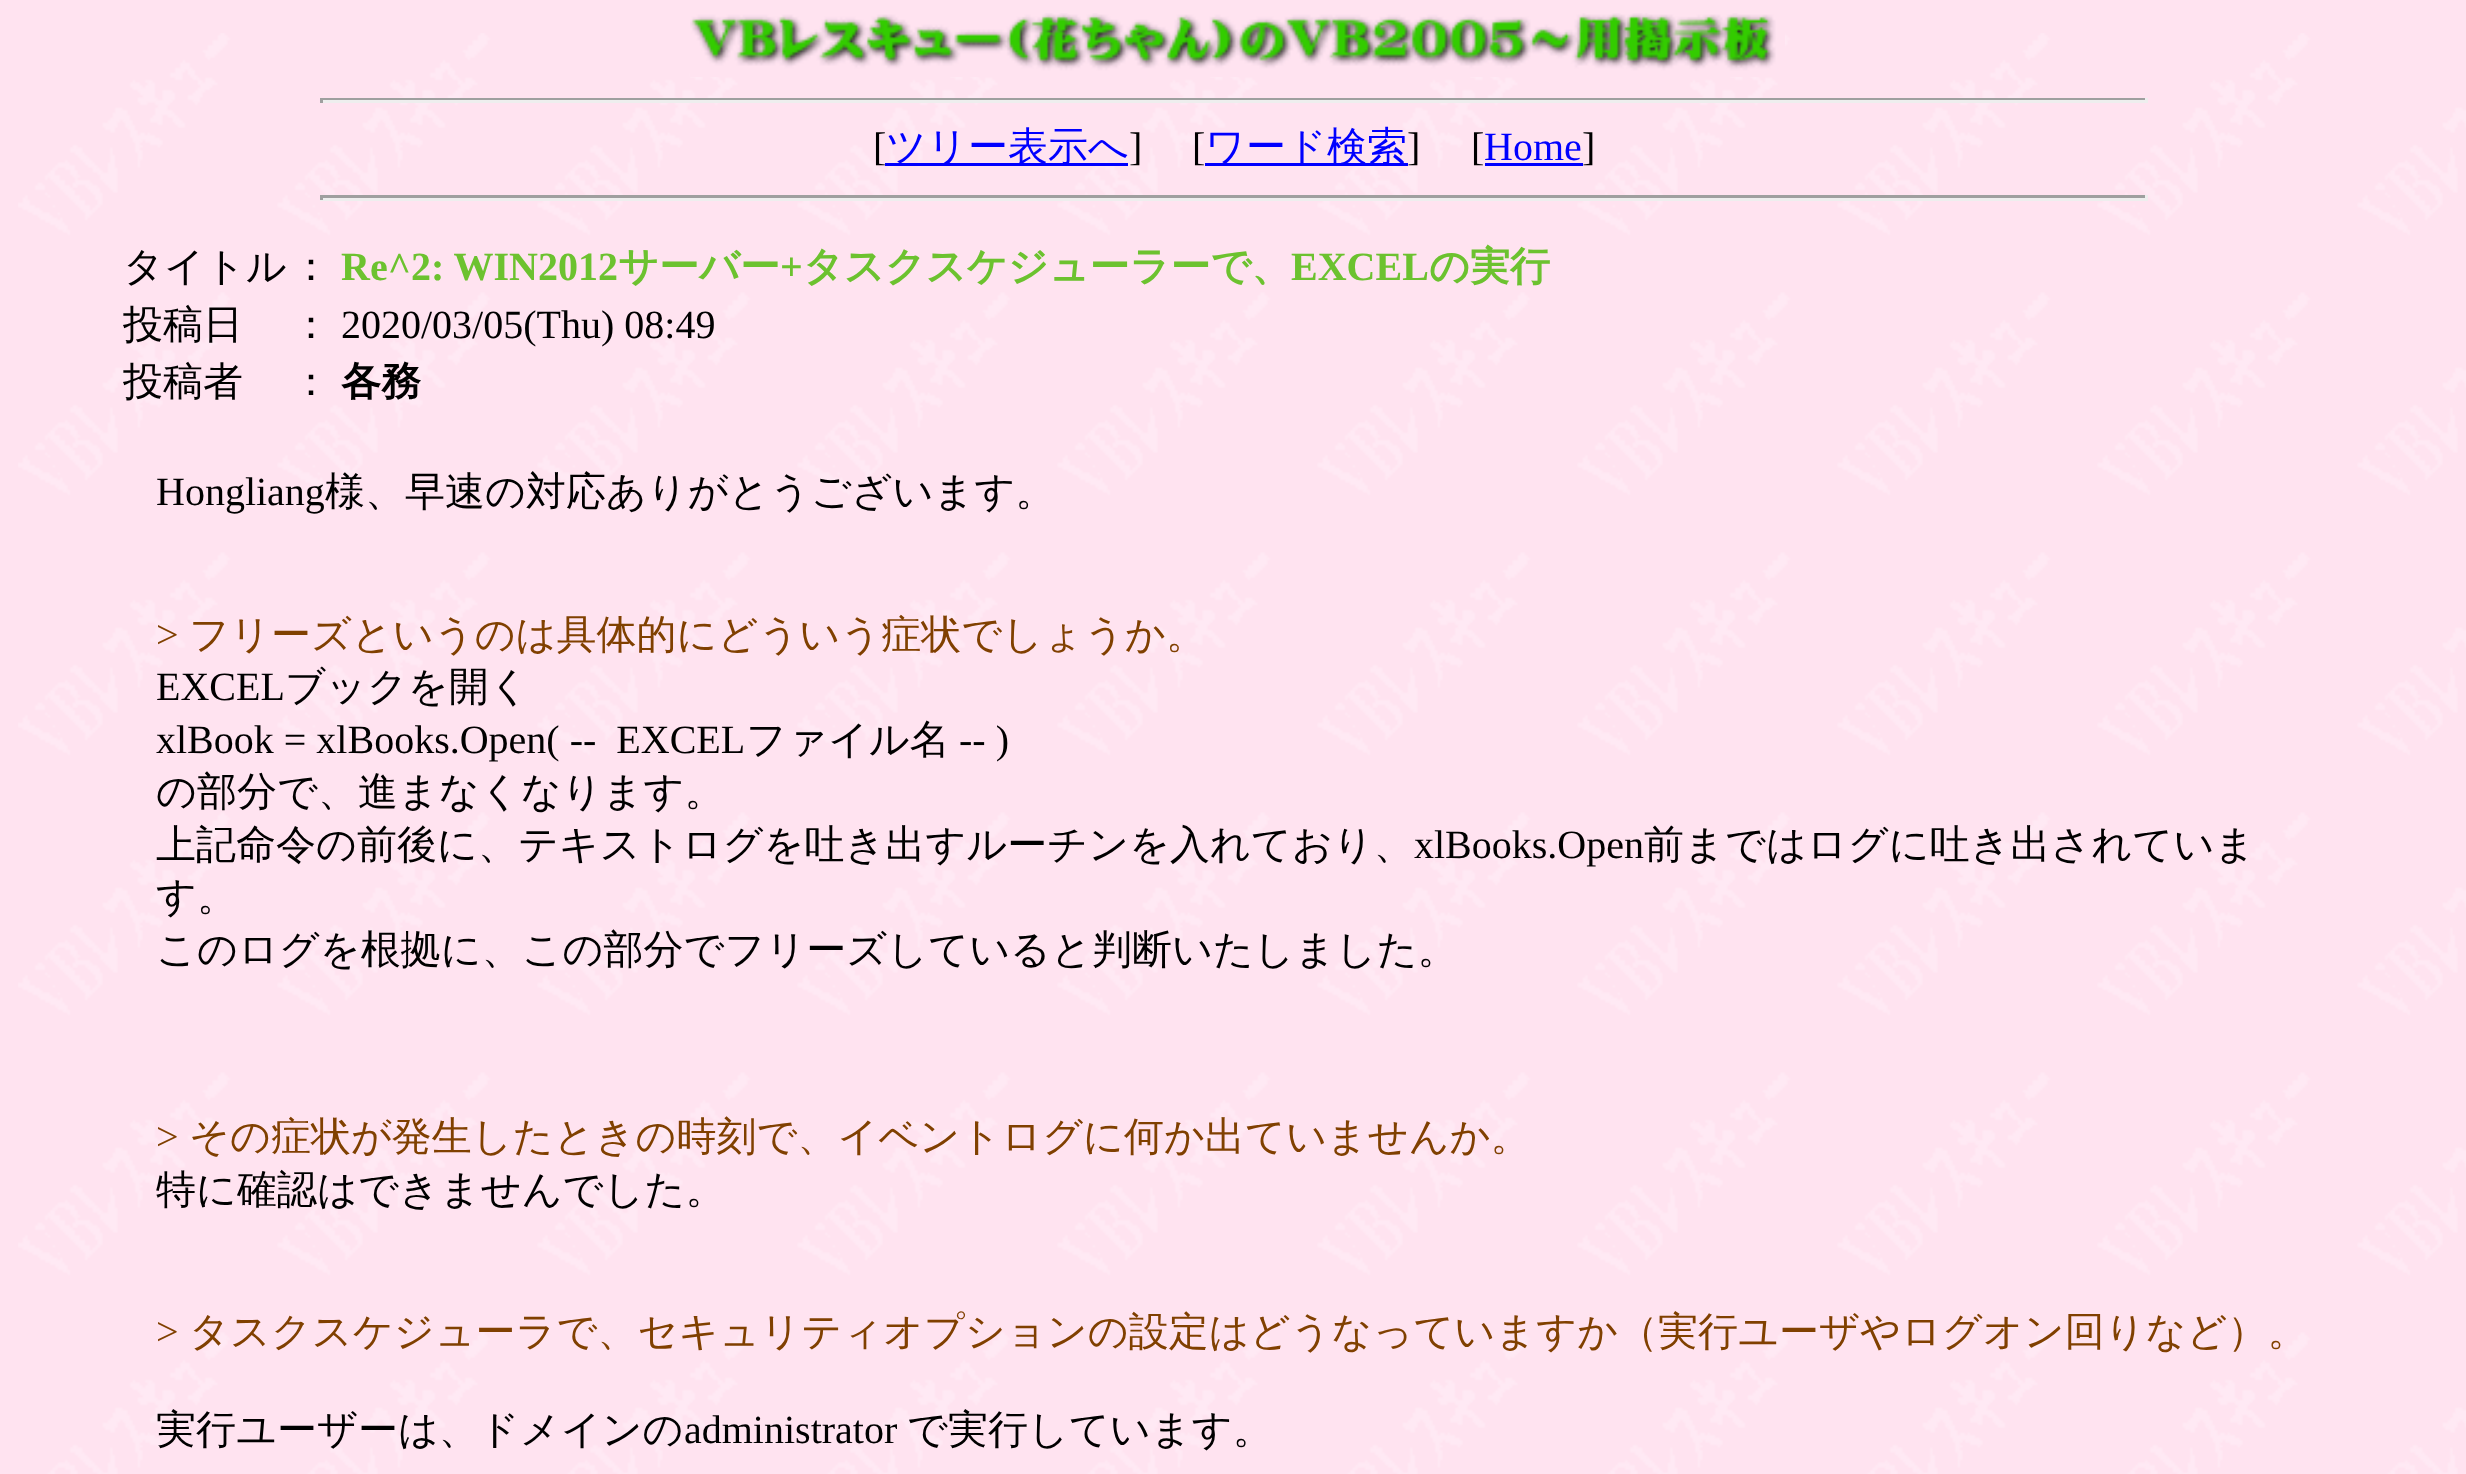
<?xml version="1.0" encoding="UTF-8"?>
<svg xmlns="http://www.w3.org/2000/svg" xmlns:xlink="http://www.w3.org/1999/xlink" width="2466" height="1474">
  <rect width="100%" height="100%" fill="#ffe3f0" />
  <image x="18" y="33" width="2448" height="1441" xlink:href="image1.png" />
  <image x="690" y="13" width="1095" height="64" xlink:href="image2.png" />
  <rect x="320" y="98" width="1828" height="2" fill="#9f9f9f" />
  <rect x="2145" y="98" width="3" height="5" fill="#eeeeee" />
  <rect x="320" y="100" width="1828" height="3" fill="#eeeeee" />
  <rect x="320" y="98" width="3" height="5" fill="#9f9f9f" />
  <rect x="885" y="163" width="243" height="3" fill="#0000ff" />
  <rect x="1205" y="163" width="203" height="3" fill="#0000ff" />
  <rect x="1485" y="163" width="98" height="3" fill="#0000ff" />
  <rect x="320" y="195" width="1828" height="3" fill="#9f9f9f" />
  <rect x="2145" y="195" width="3" height="5" fill="#eeeeee" />
  <rect x="320" y="198" width="1828" height="3" fill="#eeeeee" />
  <rect x="320" y="195" width="3" height="5" fill="#9f9f9f" />
  <text x="873" y="160" style="font-family: Liberation Serif; font-size: 40px; fill: #000000">[</text>
  <text x="886" y="160" style="font-family: WenQuanYi Zen Hei; font-size: 40px; font-weight: 500; fill: #0000ff">ツリー表示へ</text>
  <text x="1129" y="160" style="font-family: Liberation Serif; font-size: 40px; fill: #000000">]</text>
  <text x="1192" y="160" style="font-family: Liberation Serif; font-size: 40px; fill: #000000">[</text>
  <text x="1205" y="160" style="font-family: WenQuanYi Zen Hei; font-size: 40px; font-weight: 500; fill: #0000ff">ワード検索</text>
  <text x="1407" y="160" style="font-family: Liberation Serif; font-size: 40px; fill: #000000">]</text>
  <text x="1471" y="160" style="font-family: Liberation Serif; font-size: 40px; fill: #000000">[</text>
  <text x="1484" y="160" style="font-family: Liberation Serif; font-size: 40px; fill: #0000ff">Home</text>
  <text x="1582" y="160" style="font-family: Liberation Serif; font-size: 40px; fill: #000000">]</text>
  <text x="123" y="280" style="font-family: WenQuanYi Zen Hei; font-size: 40px; font-weight: 500; fill: #000000">タイトル</text>
  <text x="291" y="280" style="font-family: WenQuanYi Zen Hei; font-size: 40px; font-weight: 500; fill: #000000">：</text>
  <text x="341" y="280" style="font-family: Liberation Serif; font-size: 40px; font-weight: bold; fill: #6cc22f">Re^2: WIN2012</text>
  <text x="618" y="280" style="font-family: WenQuanYi Zen Hei; font-size: 40px; font-weight: bold; fill: #6cc22f">サーバー</text>
  <text x="780" y="280" style="font-family: Liberation Serif; font-size: 40px; font-weight: bold; fill: #6cc22f">+</text>
  <text x="803" y="280" style="font-family: WenQuanYi Zen Hei; font-size: 40px; font-weight: bold; fill: #6cc22f">タスクスケジューラーで、</text>
  <text x="1291" y="280" style="font-family: Liberation Serif; font-size: 40px; font-weight: bold; fill: #6cc22f">EXCEL</text>
  <text x="1429" y="280" style="font-family: WenQuanYi Zen Hei; font-size: 40px; font-weight: bold; fill: #6cc22f">の実行</text>
  <text x="123" y="338" style="font-family: WenQuanYi Zen Hei; font-size: 40px; font-weight: 500; fill: #000000">投稿日</text>
  <text x="291" y="338" style="font-family: WenQuanYi Zen Hei; font-size: 40px; font-weight: 500; fill: #000000">：</text>
  <text x="341" y="338" style="font-family: Liberation Serif; font-size: 40px; fill: #000000">2020/03/05(Thu) 08:49</text>
  <text x="123" y="395" style="font-family: WenQuanYi Zen Hei; font-size: 40px; font-weight: 500; fill: #000000">投稿者</text>
  <text x="291" y="395" style="font-family: WenQuanYi Zen Hei; font-size: 40px; font-weight: 500; fill: #000000">：</text>
  <text x="341" y="395" style="font-family: WenQuanYi Zen Hei; font-size: 40px; font-weight: bold; fill: #000000">各務</text>
  <text x="156" y="505" style="font-family: Liberation Serif; font-size: 40px; fill: #000000">Hongliang</text>
  <text x="325" y="505" style="font-family: WenQuanYi Zen Hei; font-size: 40px; font-weight: 500; fill: #000000">様、早速の対応ありがとうございます。</text>
  <text x="156" y="648" style="font-family: Liberation Serif; font-size: 40px; fill: #804000">&gt;</text>
  <text x="189" y="648" style="font-family: WenQuanYi Zen Hei; font-size: 40px; font-weight: 500; fill: #804000">フリーズというのは具体的にどういう症状でしょうか。</text>
  <text x="156" y="700" style="font-family: Liberation Serif; font-size: 40px; fill: #000000">EXCEL</text>
  <text x="285" y="700" style="font-family: WenQuanYi Zen Hei; font-size: 40px; font-weight: 500; fill: #000000">ブックを開く</text>
  <text x="156" y="753" style="font-family: Liberation Serif; font-size: 40px; fill: #000000" xml:space="preserve">xlBook = xlBooks.Open( --  EXCEL</text>
  <text x="746" y="753" style="font-family: WenQuanYi Zen Hei; font-size: 40px; font-weight: 500; fill: #000000">ファイル名</text>
  <text x="959" y="753" style="font-family: Liberation Serif; font-size: 40px; fill: #000000">-- )</text>
  <text x="156" y="805" style="font-family: WenQuanYi Zen Hei; font-size: 40px; font-weight: 500; fill: #000000">の部分で、進まなくなります。</text>
  <text x="156" y="858" style="font-family: WenQuanYi Zen Hei; font-size: 40px; font-weight: 500; fill: #000000">上記命令の前後に、テキストログを吐き出すルーチンを入れており、</text>
  <text x="1414" y="858" style="font-family: Liberation Serif; font-size: 40px; fill: #000000">xlBooks.Open</text>
  <text x="1644" y="858" style="font-family: WenQuanYi Zen Hei; font-size: 40px; font-weight: 500; fill: #000000">前まではログに吐き出されていま</text>
  <text x="156" y="910" style="font-family: WenQuanYi Zen Hei; font-size: 40px; font-weight: 500; fill: #000000">す。</text>
  <text x="156" y="963" style="font-family: WenQuanYi Zen Hei; font-size: 40px; font-weight: 500; fill: #000000">このログを根拠に、この部分でフリーズしていると判断いたしました。</text>
  <text x="156" y="1150" style="font-family: Liberation Serif; font-size: 40px; fill: #804000">&gt;</text>
  <text x="189" y="1150" style="font-family: WenQuanYi Zen Hei; font-size: 40px; font-weight: 500; fill: #804000">その症状が発生したときの時刻で、イベントログに何か出ていませんか。</text>
  <text x="156" y="1203" style="font-family: WenQuanYi Zen Hei; font-size: 40px; font-weight: 500; fill: #000000">特に確認はできませんでした。</text>
  <text x="156" y="1345" style="font-family: Liberation Serif; font-size: 40px; fill: #804000">&gt;</text>
  <text x="189" y="1345" style="font-family: WenQuanYi Zen Hei; font-size: 40px; font-weight: 500; fill: #804000">タスクスケジューラで、セキュリティオプションの設定はどうなっていますか（実行ユーザやログオン回りなど）。</text>
  <text x="156" y="1443" style="font-family: WenQuanYi Zen Hei; font-size: 40px; font-weight: 500; fill: #000000">実行ユーザーは、ドメインの</text>
  <text x="684" y="1443" style="font-family: Liberation Serif; font-size: 40px; fill: #000000">administrator</text>
  <text x="907" y="1443" style="font-family: WenQuanYi Zen Hei; font-size: 40px; font-weight: 500; fill: #000000">で実行しています。</text>
</svg>
